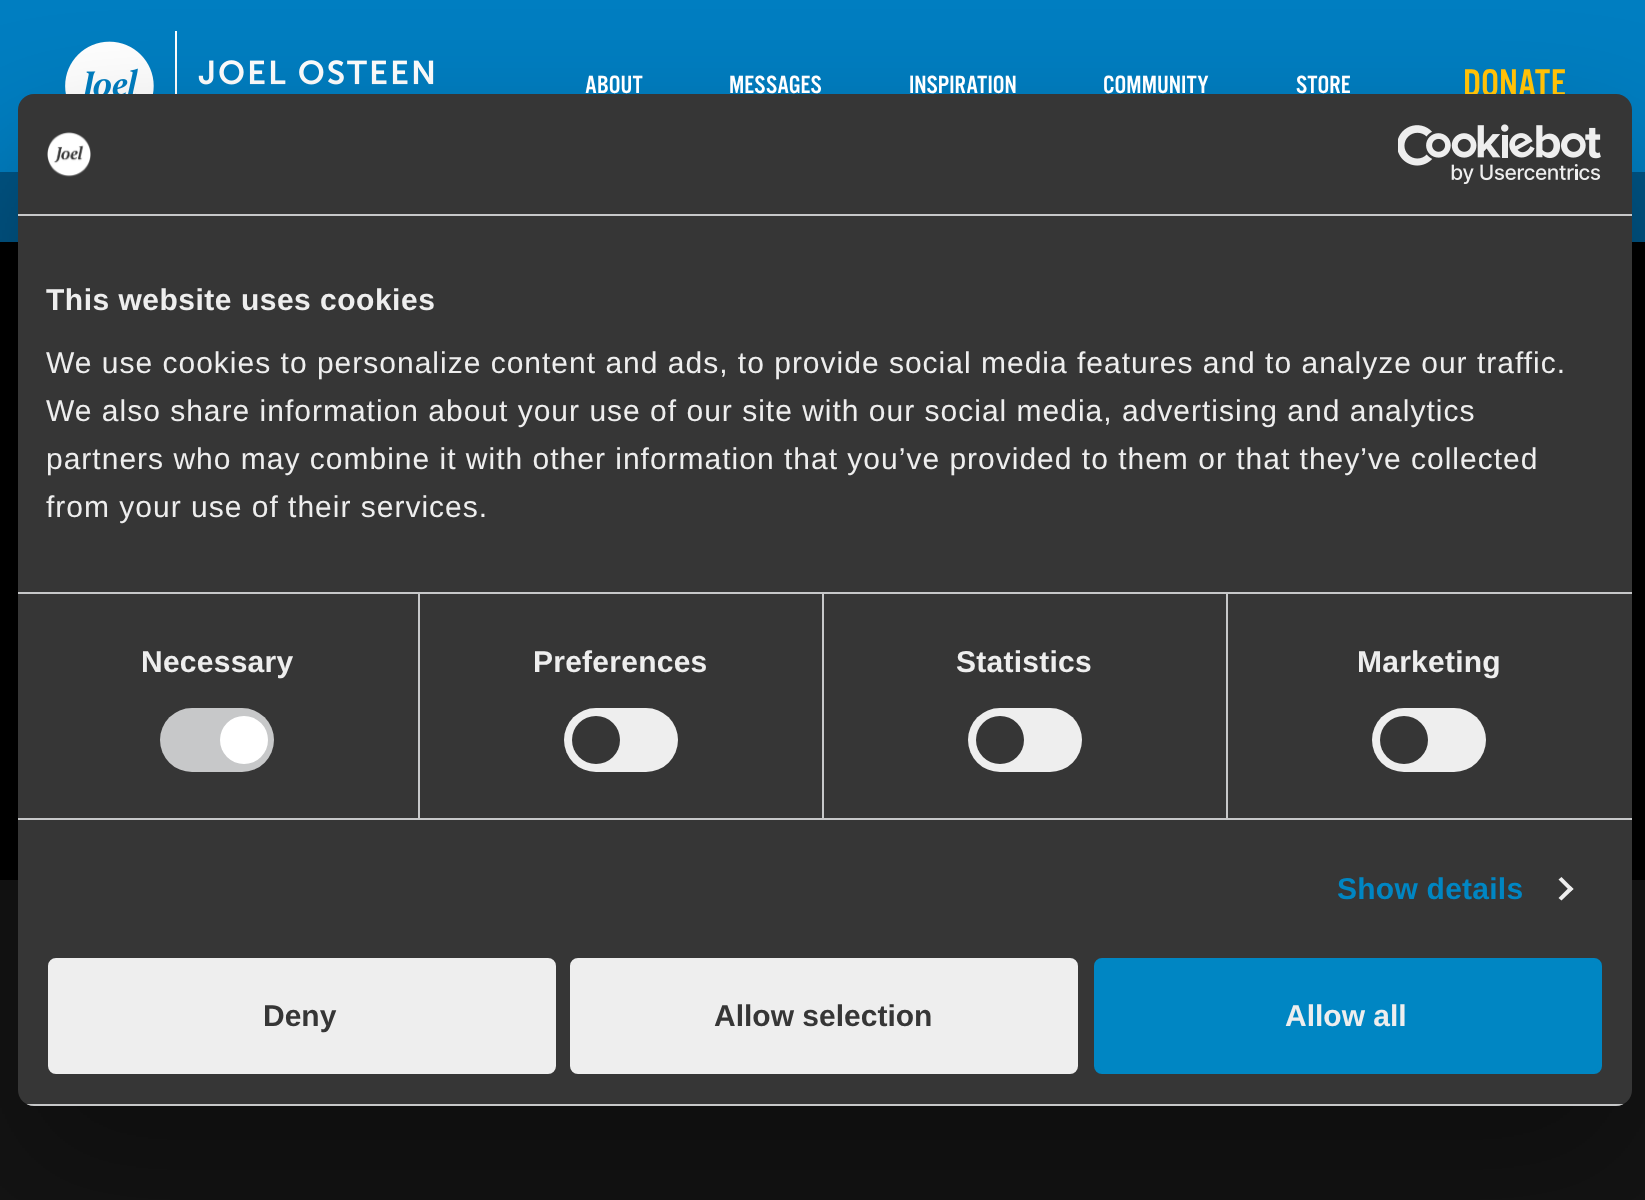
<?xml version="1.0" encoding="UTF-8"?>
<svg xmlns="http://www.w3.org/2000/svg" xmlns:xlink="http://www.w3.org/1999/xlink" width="1645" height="1200">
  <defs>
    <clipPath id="clip1"><rect x="18" y="94" width="1614" height="1012" rx="16" /></clipPath>
  </defs>
  <rect width="100%" height="100%" fill="#000000" />
  <rect width="1645" height="172" fill="#007ec1" />
  <image x="65" y="31" width="369" height="63" xlink:href="image1.png" />
  <rect y="172" width="1645" height="70" fill="#005484" />
  <rect y="880" width="1645" height="320" fill="#141414" />
  <rect x="18" y="158" width="1614" height="1012" rx="16" fill="#000000" fill-opacity="0.3" filter="blur(68px)" />
  <text x="585" y="93" style="font-family: 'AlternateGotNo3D'; font-size: 26px; fill: #ffffff">ABOUT</text>
  <text x="729" y="93" style="font-family: 'AlternateGotNo3D'; font-size: 26px; fill: #ffffff">MESSAGES</text>
  <text x="909" y="93" style="font-family: 'AlternateGotNo3D'; font-size: 26px; fill: #ffffff">INSPIRATION</text>
  <text x="1103" y="93" style="font-family: 'AlternateGotNo3D'; font-size: 26px; fill: #ffffff">COMMUNITY</text>
  <text x="1296" y="93" style="font-family: 'AlternateGotNo3D'; font-size: 26px; fill: #ffffff">STORE</text>
  <text x="1463" y="96" style="font-family: 'AlternateGotNo3D'; font-size: 40px; fill: #ffc107">DONATE</text>
  <rect x="18" y="94" width="1614" height="1012" rx="16" fill="#363636" />
  <rect x="18" y="214" width="1614" height="2" fill="#c7c8c9" />
  <image x="47" y="132" width="44" height="45" xlink:href="image2.png" />
  <image x="1398" y="124" width="203" height="60" xlink:href="image3.png" />
  <rect x="18" y="592" width="1614" height="2" fill="#c7c8c9" />
  <text x="46" y="310" style="font-family: Liberation Sans; font-size: 30px; font-weight: bold; letter-spacing: 0.5px; fill: #eeeeee">This website uses cookies</text>
  <text x="46" y="373" style="font-family: Liberation Sans; font-size: 30px; letter-spacing: 1px; fill: #eeeeee">We use cookies to personalize content and ads, to provide social media features and to analyze our traffic.</text>
  <text x="46" y="421" style="font-family: Liberation Sans; font-size: 30px; letter-spacing: 1px; fill: #eeeeee">We also share information about your use of our site with our social media, advertising and analytics</text>
  <text x="46" y="469" style="font-family: Liberation Sans; font-size: 30px; letter-spacing: 1px; fill: #eeeeee">partners who may combine it with other information that you’ve provided to them or that they’ve collected</text>
  <text x="46" y="517" style="font-family: Liberation Sans; font-size: 30px; letter-spacing: 1px; fill: #eeeeee">from your use of their services.</text>
  <rect x="18" y="818" width="1614" height="2" fill="#c7c8c9" />
  <rect x="418" y="594" width="2" height="224" fill="#c7c8c9" />
  <text x="141" y="672" style="font-family: Liberation Sans; font-size: 30px; font-weight: bold; letter-spacing: 0.25px; fill: #eeeeee">Necessary</text>
  <rect x="160" y="708" width="114" height="64" rx="32" fill="#c7c8c9" />
  <circle cx="244" cy="740" r="24" fill="#ffffff" />
  <rect x="822" y="594" width="2" height="224" fill="#c7c8c9" />
  <text x="533" y="672" style="font-family: Liberation Sans; font-size: 30px; font-weight: bold; letter-spacing: 0.25px; fill: #eeeeee">Preferences</text>
  <rect x="564" y="708" width="114" height="64" rx="32" fill="#eeeeee" />
  <circle cx="596" cy="740" r="24" fill="#363636" />
  <rect x="1226" y="594" width="2" height="224" fill="#c7c8c9" />
  <text x="956" y="672" style="font-family: Liberation Sans; font-size: 30px; font-weight: bold; letter-spacing: 0.25px; fill: #eeeeee">Statistics</text>
  <rect x="968" y="708" width="114" height="64" rx="32" fill="#eeeeee" />
  <circle cx="1000" cy="740" r="24" fill="#363636" />
  <text x="1357" y="672" style="font-family: Liberation Sans; font-size: 30px; font-weight: bold; letter-spacing: 0.25px; fill: #eeeeee">Marketing</text>
  <rect x="1372" y="708" width="114" height="64" rx="32" fill="#eeeeee" />
  <circle cx="1404" cy="740" r="24" fill="#363636" />
  <text x="1337" y="899" style="font-family: Liberation Sans; font-size: 30px; font-weight: bold; letter-spacing: 0.25px; fill: #0086c3">Show details</text>
  <path d="M 1561.5 877 l 12 12 l -3 2.5 l -12 -12 z" fill="#eeeeee" />
  <path d="M 1570.5 886 l 3 3 l -12 11.5 l -3 -2.5 z" fill="#eeeeee" />
  <g clip-path="url(#clip1)">
    <rect x="18" y="1104" width="1614" height="2" fill="#c7c8c9" />
  </g>
  <rect x="50" y="960" width="504" height="112" rx="6" fill="#eeeeee" stroke="#eeeeee" stroke-width="4" />
  <text x="263" y="1026" style="font-family: Liberation Sans; font-size: 30px; font-weight: bold; fill: #363636">Deny</text>
  <rect x="572" y="960" width="504" height="112" rx="6" fill="#eeeeee" stroke="#eeeeee" stroke-width="4" />
  <text x="714" y="1026" style="font-family: Liberation Sans; font-size: 30px; font-weight: bold; fill: #363636">Allow selection</text>
  <rect x="1096" y="960" width="504" height="112" rx="6" fill="#0086c3" stroke="#0086c3" stroke-width="4" />
  <text x="1285" y="1026" style="font-family: Liberation Sans; font-size: 30px; font-weight: bold; fill: #eeeeee">Allow all</text>
</svg>
